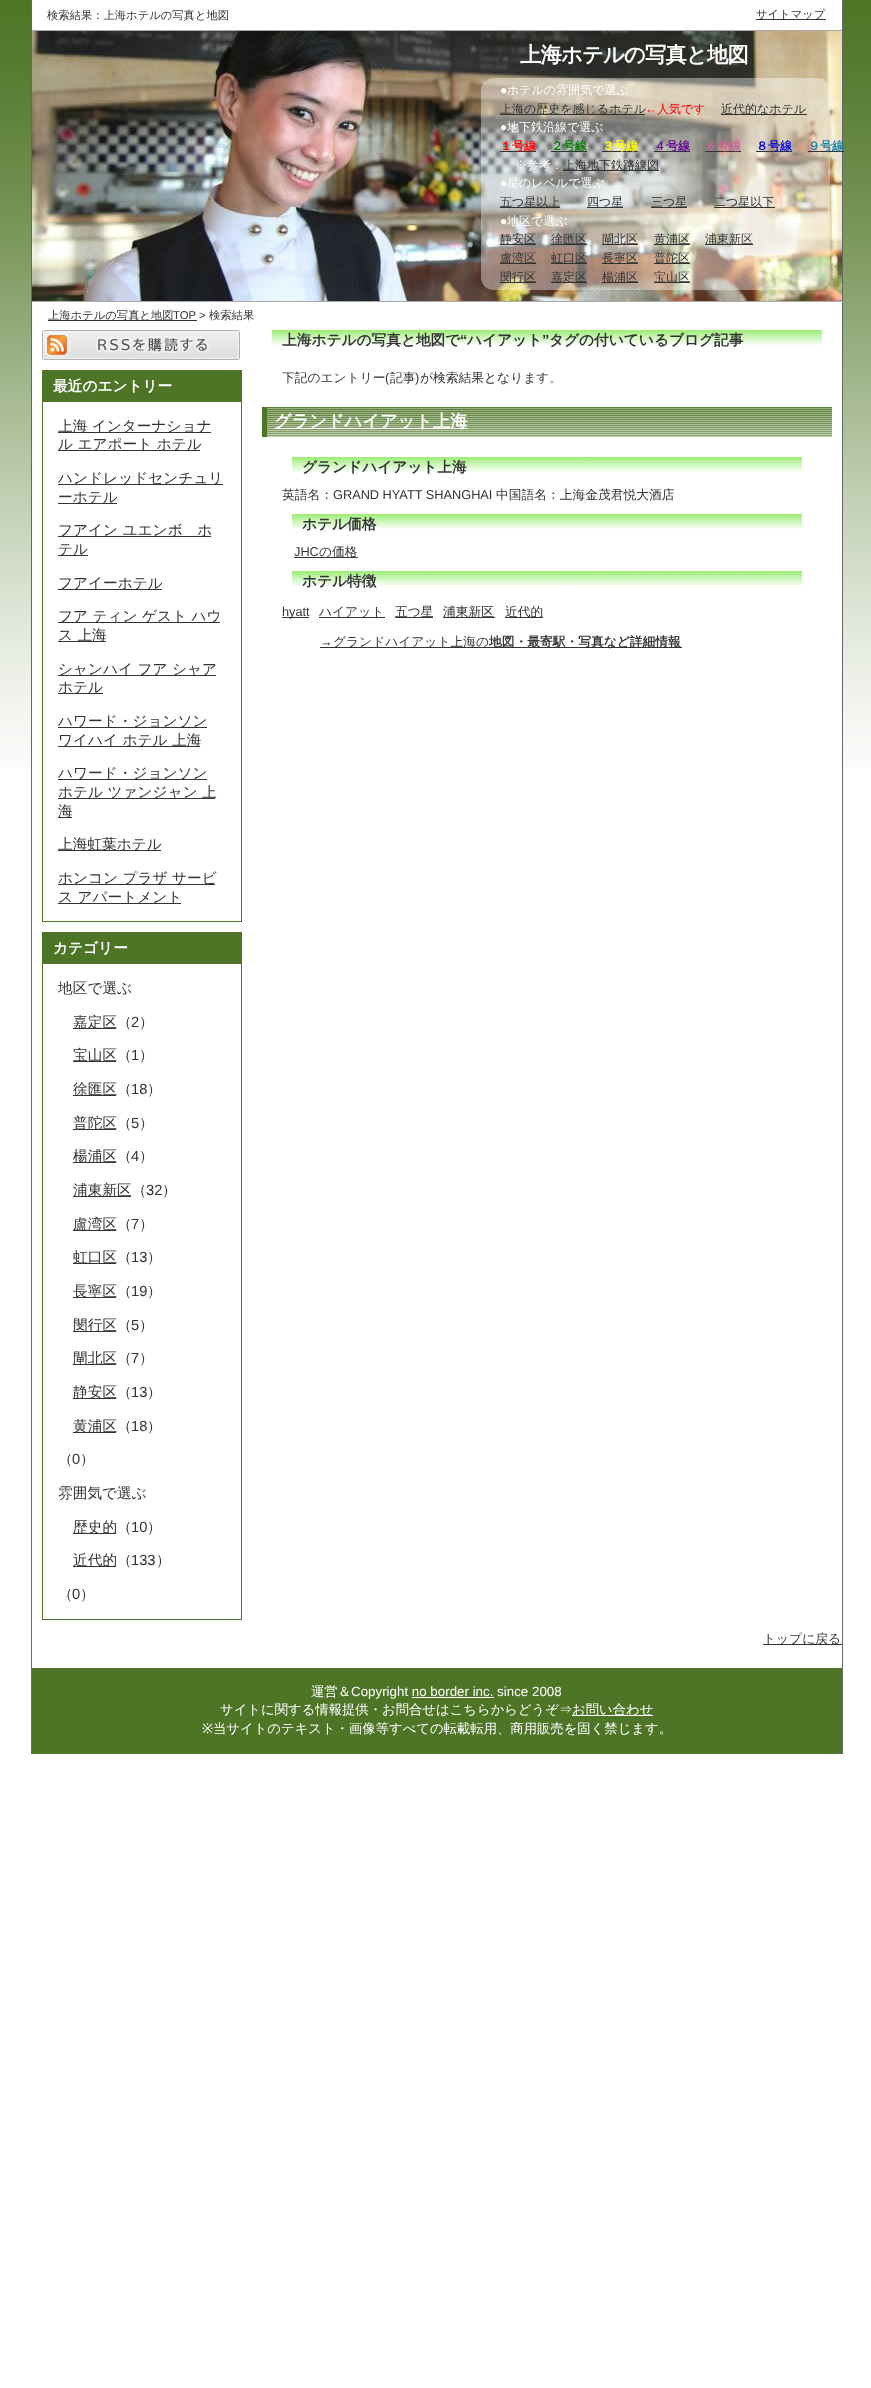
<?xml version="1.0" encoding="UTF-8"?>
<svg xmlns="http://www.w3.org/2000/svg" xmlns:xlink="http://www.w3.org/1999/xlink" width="871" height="2388">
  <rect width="100%" height="100%" fill="#ffffff" />
  <image x="0" y="0" width="871" height="768" xlink:href="image1.png" />
  <rect x="32" width="810" height="30" fill="#ffffff" />
  <rect x="842" width="1" height="30" fill="#666666" />
  <rect x="31" width="1" height="30" fill="#666666" />
  <rect x="756" y="19" width="70" height="1" fill="#333333" />
  <image x="32" y="31" width="810" height="270" xlink:href="image2.png" />
  <rect x="31" y="30" width="812" height="1" fill="#aaaaaa" />
  <rect x="842" y="300" width="1" height="1454" fill="#666666" />
  <rect x="842" y="30" width="1" height="272" fill="#666666" />
  <rect x="31" y="300" width="1" height="1454" fill="#666666" />
  <rect x="31" y="301" width="812" height="1" fill="#aaaaaa" />
  <rect x="31" y="30" width="1" height="272" fill="#666666" />
  <rect x="500" y="114" width="145" height="1" fill="#333333" />
  <rect x="721" y="114" width="86" height="1" fill="#333333" />
  <rect x="500" y="151" width="36" height="1" fill="#333333" />
  <rect x="551" y="151" width="36" height="1" fill="#333333" />
  <rect x="602" y="151" width="36" height="1" fill="#333333" />
  <rect x="654" y="151" width="36" height="1" fill="#333333" />
  <rect x="705" y="151" width="36" height="1" fill="#333333" />
  <rect x="756" y="151" width="36" height="1" fill="#333333" />
  <rect x="808" y="151" width="36" height="1" fill="#333333" />
  <rect x="563" y="170" width="96" height="1" fill="#333333" />
  <rect x="500" y="207" width="60" height="1" fill="#333333" />
  <rect x="587" y="207" width="36" height="1" fill="#333333" />
  <rect x="651" y="207" width="36" height="1" fill="#333333" />
  <rect x="714" y="207" width="61" height="1" fill="#333333" />
  <rect x="500" y="244" width="36" height="1" fill="#333333" />
  <rect x="551" y="244" width="36" height="1" fill="#333333" />
  <rect x="602" y="244" width="36" height="1" fill="#333333" />
  <rect x="654" y="244" width="36" height="1" fill="#333333" />
  <rect x="705" y="244" width="48" height="1" fill="#333333" />
  <rect x="500" y="263" width="36" height="1" fill="#333333" />
  <rect x="551" y="263" width="36" height="1" fill="#333333" />
  <rect x="602" y="263" width="36" height="1" fill="#333333" />
  <rect x="654" y="263" width="36" height="1" fill="#333333" />
  <rect x="500" y="282" width="36" height="1" fill="#333333" />
  <rect x="551" y="282" width="36" height="1" fill="#333333" />
  <rect x="602" y="282" width="36" height="1" fill="#333333" />
  <rect x="654" y="282" width="36" height="1" fill="#333333" />
  <rect x="32" y="302" width="810" height="466" fill="#ffffff" />
  <rect x="48" y="320" width="149" height="1" fill="#333333" />
  <image x="42" y="330" width="198" height="30" xlink:href="image3.png" />
  <rect x="42.5" y="370.5" width="199" height="551" fill="none" stroke="#4e7526" />
  <rect x="43" y="371" width="198" height="31" fill="#4e7526" />
  <rect x="58" y="432" width="153" height="1" fill="#333333" />
  <rect x="58" y="450" width="142" height="1" fill="#333333" />
  <rect x="58" y="484" width="165" height="1" fill="#333333" />
  <rect x="58" y="503" width="59" height="1" fill="#333333" />
  <rect x="58" y="536" width="153" height="1" fill="#333333" />
  <rect x="58" y="555" width="30" height="1" fill="#333333" />
  <rect x="58" y="589" width="104" height="1" fill="#333333" />
  <rect x="58" y="622" width="162" height="1" fill="#333333" />
  <rect x="58" y="641" width="48" height="1" fill="#333333" />
  <rect x="58" y="675" width="158" height="1" fill="#333333" />
  <rect x="58" y="693" width="45" height="1" fill="#333333" />
  <rect x="58" y="727" width="149" height="1" fill="#333333" />
  <rect x="58" y="746" width="142" height="1" fill="#333333" />
  <rect x="58" y="779" width="149" height="1" fill="#333333" />
  <rect x="58" y="798" width="157" height="1" fill="#333333" />
  <rect x="58" y="817" width="14" height="1" fill="#333333" />
  <rect x="58" y="850" width="103" height="1" fill="#333333" />
  <rect x="58" y="884" width="157" height="1" fill="#333333" />
  <rect x="58" y="903" width="123" height="1" fill="#333333" />
  <rect x="42.5" y="932.5" width="199" height="687" fill="none" stroke="#4e7526" />
  <rect x="43" y="933" width="198" height="31" fill="#4e7526" />
  <rect x="73" y="1028" width="43" height="1" fill="#333333" />
  <rect x="73" y="1061" width="43" height="1" fill="#333333" />
  <rect x="73" y="1095" width="43" height="1" fill="#333333" />
  <rect x="73" y="1129" width="43" height="1" fill="#333333" />
  <rect x="73" y="1162" width="43" height="1" fill="#333333" />
  <rect x="73" y="1196" width="58" height="1" fill="#333333" />
  <rect x="73" y="1230" width="43" height="1" fill="#333333" />
  <rect x="73" y="1263" width="43" height="1" fill="#333333" />
  <rect x="73" y="1297" width="43" height="1" fill="#333333" />
  <rect x="73" y="1331" width="43" height="1" fill="#333333" />
  <rect x="73" y="1364" width="43" height="1" fill="#333333" />
  <rect x="73" y="1398" width="43" height="1" fill="#333333" />
  <rect x="73" y="1432" width="43" height="1" fill="#333333" />
  <rect x="73" y="1533" width="43" height="1" fill="#333333" />
  <rect x="73" y="1566" width="43" height="1" fill="#333333" />
  <image x="272" y="330" width="550" height="15" xlink:href="image4.png" />
  <image x="267" y="407" width="565" height="30" xlink:href="image5.png" />
  <rect x="262" y="407" width="5" height="30" fill="#4e7526" />
  <rect x="274" y="428" width="194" height="1" fill="#ffffff" />
  <image x="292" y="457" width="510" height="15" xlink:href="image6.png" />
  <image x="292" y="514" width="510" height="15" xlink:href="image6.png" />
  <rect x="294" y="557" width="64" height="1" fill="#333333" />
  <image x="292" y="571" width="510" height="15" xlink:href="image6.png" />
  <rect x="282" y="617" width="27" height="1" fill="#333333" />
  <rect x="319" y="617" width="66" height="1" fill="#333333" />
  <rect x="395" y="617" width="38" height="1" fill="#333333" />
  <rect x="443" y="617" width="52" height="1" fill="#333333" />
  <rect x="505" y="617" width="38" height="1" fill="#333333" />
  <rect x="320" y="647" width="362" height="1" fill="#333333" />
  <rect x="763" y="1644" width="79" height="1" fill="#333333" />
  <rect x="32" y="1668" width="810" height="86" fill="#4e7526" />
  <rect x="412" y="1697" width="82" height="1" fill="#ffffff" />
  <rect x="572" y="1715" width="81" height="1" fill="#ffffff" />
  <text x="47" y="19" style="font-family: WenQuanYi Zen Hei; font-size: 11.3px; font-weight: 500; fill: #333333">検索結果：上海ホテルの写真と地図</text>
  <text x="756" y="18" style="font-family: WenQuanYi Zen Hei; font-size: 11.3px; font-weight: 500; fill: #333333">サイトマップ</text>
  <text x="520" y="62" style="font-family: WenQuanYi Zen Hei; font-size: 21.25px; font-weight: bold; letter-spacing: -0.75px; fill: #ffffff">上海ホテルの写真と地図</text>
  <text x="500" y="94" style="font-family: Liberation Sans; font-size: 12px; fill: #ffffff">●</text>
  <text x="507" y="94" style="font-family: WenQuanYi Zen Hei; font-size: 12px; font-weight: 500; fill: #ffffff">ホテルの雰囲気で選ぶ</text>
  <text x="500" y="113" style="font-family: WenQuanYi Zen Hei; font-size: 12px; font-weight: 500; fill: #333333">上海の歴史を感じるホテル</text>
  <text x="645" y="113" style="font-family: Liberation Sans; font-size: 12px; fill: #ff0000">←</text>
  <text x="657" y="113" style="font-family: WenQuanYi Zen Hei; font-size: 12px; font-weight: 500; fill: #ff0000">人気です</text>
  <text x="721" y="113" style="font-family: WenQuanYi Zen Hei; font-size: 12px; font-weight: 500; fill: #333333">近代的なホテル</text>
  <text x="500" y="131" style="font-family: Liberation Sans; font-size: 12px; fill: #ffffff">●</text>
  <text x="507" y="131" style="font-family: WenQuanYi Zen Hei; font-size: 12px; font-weight: 500; fill: #ffffff">地下鉄沿線で選ぶ</text>
  <text x="500" y="150" style="font-family: WenQuanYi Zen Hei; font-size: 12px; font-weight: bold; fill: #ff0000">１号線</text>
  <text x="551" y="150" style="font-family: WenQuanYi Zen Hei; font-size: 12px; font-weight: bold; fill: #008000">２号線</text>
  <text x="602" y="150" style="font-family: WenQuanYi Zen Hei; font-size: 12px; font-weight: bold; fill: #ffff00">３号線</text>
  <text x="654" y="150" style="font-family: WenQuanYi Zen Hei; font-size: 12px; font-weight: bold; fill: #660099">４号線</text>
  <text x="705" y="150" style="font-family: WenQuanYi Zen Hei; font-size: 12px; font-weight: bold; fill: #cc6699">６号線</text>
  <text x="756" y="150" style="font-family: WenQuanYi Zen Hei; font-size: 12px; font-weight: bold; fill: #0000dd">８号線</text>
  <text x="808" y="150" style="font-family: WenQuanYi Zen Hei; font-size: 12px; font-weight: bold; fill: #167fa6">９号線</text>
  <text x="515" y="169" style="font-family: WenQuanYi Zen Hei; font-size: 12px; font-weight: 500; fill: #ffffff">※参考：</text>
  <text x="563" y="169" style="font-family: WenQuanYi Zen Hei; font-size: 12px; font-weight: 500; fill: #333333">上海地下鉄路線図</text>
  <text x="500" y="187" style="font-family: Liberation Sans; font-size: 12px; fill: #ffffff">●</text>
  <text x="507" y="187" style="font-family: WenQuanYi Zen Hei; font-size: 12px; font-weight: 500; fill: #ffffff">星のレベルで選ぶ</text>
  <text x="500" y="206" style="font-family: WenQuanYi Zen Hei; font-size: 12px; font-weight: 500; fill: #333333">五つ星以上</text>
  <text x="587" y="206" style="font-family: WenQuanYi Zen Hei; font-size: 12px; font-weight: 500; fill: #333333">四つ星</text>
  <text x="651" y="206" style="font-family: WenQuanYi Zen Hei; font-size: 12px; font-weight: 500; fill: #333333">三つ星</text>
  <text x="714" y="206" style="font-family: WenQuanYi Zen Hei; font-size: 12px; font-weight: 500; fill: #333333">二つ星以下</text>
  <text x="500" y="225" style="font-family: Liberation Sans; font-size: 12px; fill: #ffffff">●</text>
  <text x="507" y="225" style="font-family: WenQuanYi Zen Hei; font-size: 12px; font-weight: 500; fill: #ffffff">地区で選ぶ</text>
  <text x="500" y="243" style="font-family: WenQuanYi Zen Hei; font-size: 12px; font-weight: 500; fill: #333333">静安区</text>
  <text x="551" y="243" style="font-family: WenQuanYi Zen Hei; font-size: 12px; font-weight: 500; fill: #333333">徐匯区</text>
  <text x="602" y="243" style="font-family: WenQuanYi Zen Hei; font-size: 12px; font-weight: 500; fill: #333333">閘北区</text>
  <text x="654" y="243" style="font-family: WenQuanYi Zen Hei; font-size: 12px; font-weight: 500; fill: #333333">黄浦区</text>
  <text x="705" y="243" style="font-family: WenQuanYi Zen Hei; font-size: 12px; font-weight: 500; fill: #333333">浦東新区</text>
  <text x="500" y="262" style="font-family: WenQuanYi Zen Hei; font-size: 12px; font-weight: 500; fill: #333333">盧湾区</text>
  <text x="551" y="262" style="font-family: WenQuanYi Zen Hei; font-size: 12px; font-weight: 500; fill: #333333">虹口区</text>
  <text x="602" y="262" style="font-family: WenQuanYi Zen Hei; font-size: 12px; font-weight: 500; fill: #333333">長寧区</text>
  <text x="654" y="262" style="font-family: WenQuanYi Zen Hei; font-size: 12px; font-weight: 500; fill: #333333">普陀区</text>
  <text x="500" y="281" style="font-family: WenQuanYi Zen Hei; font-size: 12px; font-weight: 500; fill: #333333">閔行区</text>
  <text x="551" y="281" style="font-family: WenQuanYi Zen Hei; font-size: 12px; font-weight: 500; fill: #333333">嘉定区</text>
  <text x="602" y="281" style="font-family: WenQuanYi Zen Hei; font-size: 12px; font-weight: 500; fill: #333333">楊浦区</text>
  <text x="654" y="281" style="font-family: WenQuanYi Zen Hei; font-size: 12px; font-weight: 500; fill: #333333">宝山区</text>
  <text x="48" y="319" style="font-family: WenQuanYi Zen Hei; font-size: 11.3px; font-weight: 500; fill: #333333">上海ホテルの写真と地図</text>
  <text x="173" y="319" style="font-family: Liberation Sans; font-size: 11.3px; fill: #333333">TOP &gt;</text>
  <text x="209" y="319" style="font-family: WenQuanYi Zen Hei; font-size: 11.3px; font-weight: 500; fill: #333333">検索結果</text>
  <text x="53" y="391" style="font-family: WenQuanYi Zen Hei; font-size: 14.7px; font-weight: bold; fill: #ffffff">最近のエントリー</text>
  <text x="58" y="431" style="font-family: WenQuanYi Zen Hei; font-size: 14.7px; font-weight: 500; fill: #333333">上海 インターナショナ</text>
  <text x="58" y="449" style="font-family: WenQuanYi Zen Hei; font-size: 14.7px; font-weight: 500; fill: #333333">ル エアポート ホテル</text>
  <text x="58" y="483" style="font-family: WenQuanYi Zen Hei; font-size: 14.7px; font-weight: 500; fill: #333333">ハンドレッドセンチュリ</text>
  <text x="58" y="502" style="font-family: WenQuanYi Zen Hei; font-size: 14.7px; font-weight: 500; fill: #333333">ーホテル</text>
  <text x="58" y="535" style="font-family: WenQuanYi Zen Hei; font-size: 14.7px; font-weight: 500; fill: #333333">フアイン ユエンボ　ホ</text>
  <text x="58" y="554" style="font-family: WenQuanYi Zen Hei; font-size: 14.7px; font-weight: 500; fill: #333333">テル</text>
  <text x="58" y="588" style="font-family: WenQuanYi Zen Hei; font-size: 14.7px; font-weight: 500; fill: #333333">フアイーホテル</text>
  <text x="58" y="621" style="font-family: WenQuanYi Zen Hei; font-size: 14.7px; font-weight: 500; fill: #333333">フア ティン ゲスト ハウ</text>
  <text x="58" y="640" style="font-family: WenQuanYi Zen Hei; font-size: 14.7px; font-weight: 500; fill: #333333">ス 上海</text>
  <text x="58" y="674" style="font-family: WenQuanYi Zen Hei; font-size: 14.7px; font-weight: 500; fill: #333333">シャンハイ フア シャア</text>
  <text x="58" y="692" style="font-family: WenQuanYi Zen Hei; font-size: 14.7px; font-weight: 500; fill: #333333">ホテル</text>
  <text x="58" y="726" style="font-family: WenQuanYi Zen Hei; font-size: 14.7px; font-weight: 500; fill: #333333">ハワード・ジョンソン</text>
  <text x="58" y="745" style="font-family: WenQuanYi Zen Hei; font-size: 14.7px; font-weight: 500; fill: #333333">ワイハイ ホテル 上海</text>
  <text x="58" y="778" style="font-family: WenQuanYi Zen Hei; font-size: 14.7px; font-weight: 500; fill: #333333">ハワード・ジョンソン</text>
  <text x="58" y="797" style="font-family: WenQuanYi Zen Hei; font-size: 14.7px; font-weight: 500; fill: #333333">ホテル ツァンジャン 上</text>
  <text x="58" y="816" style="font-family: WenQuanYi Zen Hei; font-size: 14.7px; font-weight: 500; fill: #333333">海</text>
  <text x="58" y="849" style="font-family: WenQuanYi Zen Hei; font-size: 14.7px; font-weight: 500; fill: #333333">上海虹葉ホテル</text>
  <text x="58" y="883" style="font-family: WenQuanYi Zen Hei; font-size: 14.7px; font-weight: 500; fill: #333333">ホンコン プラザ サービ</text>
  <text x="58" y="902" style="font-family: WenQuanYi Zen Hei; font-size: 14.7px; font-weight: 500; fill: #333333">ス アパートメント</text>
  <text x="53" y="953" style="font-family: WenQuanYi Zen Hei; font-size: 14.7px; font-weight: bold; fill: #ffffff">カテゴリー</text>
  <text x="58" y="993" style="font-family: WenQuanYi Zen Hei; font-size: 14.7px; font-weight: 500; fill: #333333">地区で選ぶ</text>
  <text x="73" y="1027" style="font-family: WenQuanYi Zen Hei; font-size: 14.7px; font-weight: 500; fill: #333333">嘉定区（</text>
  <text x="131" y="1027" style="font-family: Liberation Sans; font-size: 14.7px; fill: #333333">2</text>
  <text x="139" y="1027" style="font-family: WenQuanYi Zen Hei; font-size: 14.7px; font-weight: 500; fill: #333333">）</text>
  <text x="73" y="1060" style="font-family: WenQuanYi Zen Hei; font-size: 14.7px; font-weight: 500; fill: #333333">宝山区（</text>
  <text x="131" y="1060" style="font-family: Liberation Sans; font-size: 14.7px; fill: #333333">1</text>
  <text x="139" y="1060" style="font-family: WenQuanYi Zen Hei; font-size: 14.7px; font-weight: 500; fill: #333333">）</text>
  <text x="73" y="1094" style="font-family: WenQuanYi Zen Hei; font-size: 14.7px; font-weight: 500; fill: #333333">徐匯区（</text>
  <text x="131" y="1094" style="font-family: Liberation Sans; font-size: 14.7px; fill: #333333">18</text>
  <text x="147" y="1094" style="font-family: WenQuanYi Zen Hei; font-size: 14.7px; font-weight: 500; fill: #333333">）</text>
  <text x="73" y="1128" style="font-family: WenQuanYi Zen Hei; font-size: 14.7px; font-weight: 500; fill: #333333">普陀区（</text>
  <text x="131" y="1128" style="font-family: Liberation Sans; font-size: 14.7px; fill: #333333">5</text>
  <text x="139" y="1128" style="font-family: WenQuanYi Zen Hei; font-size: 14.7px; font-weight: 500; fill: #333333">）</text>
  <text x="73" y="1161" style="font-family: WenQuanYi Zen Hei; font-size: 14.7px; font-weight: 500; fill: #333333">楊浦区（</text>
  <text x="131" y="1161" style="font-family: Liberation Sans; font-size: 14.7px; fill: #333333">4</text>
  <text x="139" y="1161" style="font-family: WenQuanYi Zen Hei; font-size: 14.7px; font-weight: 500; fill: #333333">）</text>
  <text x="73" y="1195" style="font-family: WenQuanYi Zen Hei; font-size: 14.7px; font-weight: 500; fill: #333333">浦東新区（</text>
  <text x="146" y="1195" style="font-family: Liberation Sans; font-size: 14.7px; fill: #333333">32</text>
  <text x="162" y="1195" style="font-family: WenQuanYi Zen Hei; font-size: 14.7px; font-weight: 500; fill: #333333">）</text>
  <text x="73" y="1229" style="font-family: WenQuanYi Zen Hei; font-size: 14.7px; font-weight: 500; fill: #333333">盧湾区（</text>
  <text x="131" y="1229" style="font-family: Liberation Sans; font-size: 14.7px; fill: #333333">7</text>
  <text x="139" y="1229" style="font-family: WenQuanYi Zen Hei; font-size: 14.7px; font-weight: 500; fill: #333333">）</text>
  <text x="73" y="1262" style="font-family: WenQuanYi Zen Hei; font-size: 14.7px; font-weight: 500; fill: #333333">虹口区（</text>
  <text x="131" y="1262" style="font-family: Liberation Sans; font-size: 14.7px; fill: #333333">13</text>
  <text x="147" y="1262" style="font-family: WenQuanYi Zen Hei; font-size: 14.7px; font-weight: 500; fill: #333333">）</text>
  <text x="73" y="1296" style="font-family: WenQuanYi Zen Hei; font-size: 14.7px; font-weight: 500; fill: #333333">長寧区（</text>
  <text x="131" y="1296" style="font-family: Liberation Sans; font-size: 14.7px; fill: #333333">19</text>
  <text x="147" y="1296" style="font-family: WenQuanYi Zen Hei; font-size: 14.7px; font-weight: 500; fill: #333333">）</text>
  <text x="73" y="1330" style="font-family: WenQuanYi Zen Hei; font-size: 14.7px; font-weight: 500; fill: #333333">閔行区（</text>
  <text x="131" y="1330" style="font-family: Liberation Sans; font-size: 14.7px; fill: #333333">5</text>
  <text x="139" y="1330" style="font-family: WenQuanYi Zen Hei; font-size: 14.7px; font-weight: 500; fill: #333333">）</text>
  <text x="73" y="1363" style="font-family: WenQuanYi Zen Hei; font-size: 14.7px; font-weight: 500; fill: #333333">閘北区（</text>
  <text x="131" y="1363" style="font-family: Liberation Sans; font-size: 14.7px; fill: #333333">7</text>
  <text x="139" y="1363" style="font-family: WenQuanYi Zen Hei; font-size: 14.7px; font-weight: 500; fill: #333333">）</text>
  <text x="73" y="1397" style="font-family: WenQuanYi Zen Hei; font-size: 14.7px; font-weight: 500; fill: #333333">静安区（</text>
  <text x="131" y="1397" style="font-family: Liberation Sans; font-size: 14.7px; fill: #333333">13</text>
  <text x="147" y="1397" style="font-family: WenQuanYi Zen Hei; font-size: 14.7px; font-weight: 500; fill: #333333">）</text>
  <text x="73" y="1431" style="font-family: WenQuanYi Zen Hei; font-size: 14.7px; font-weight: 500; fill: #333333">黄浦区（</text>
  <text x="131" y="1431" style="font-family: Liberation Sans; font-size: 14.7px; fill: #333333">18</text>
  <text x="147" y="1431" style="font-family: WenQuanYi Zen Hei; font-size: 14.7px; font-weight: 500; fill: #333333">）</text>
  <text x="58" y="1464" style="font-family: WenQuanYi Zen Hei; font-size: 14.7px; font-weight: 500; fill: #333333">（</text>
  <text x="72" y="1464" style="font-family: Liberation Sans; font-size: 14.7px; fill: #333333">0</text>
  <text x="80" y="1464" style="font-family: WenQuanYi Zen Hei; font-size: 14.7px; font-weight: 500; fill: #333333">）</text>
  <text x="58" y="1498" style="font-family: WenQuanYi Zen Hei; font-size: 14.7px; font-weight: 500; fill: #333333">雰囲気で選ぶ</text>
  <text x="73" y="1532" style="font-family: WenQuanYi Zen Hei; font-size: 14.7px; font-weight: 500; fill: #333333">歴史的（</text>
  <text x="131" y="1532" style="font-family: Liberation Sans; font-size: 14.7px; fill: #333333">10</text>
  <text x="147" y="1532" style="font-family: WenQuanYi Zen Hei; font-size: 14.7px; font-weight: 500; fill: #333333">）</text>
  <text x="73" y="1565" style="font-family: WenQuanYi Zen Hei; font-size: 14.7px; font-weight: 500; fill: #333333">近代的（</text>
  <text x="131" y="1565" style="font-family: Liberation Sans; font-size: 14.7px; fill: #333333">133</text>
  <text x="156" y="1565" style="font-family: WenQuanYi Zen Hei; font-size: 14.7px; font-weight: 500; fill: #333333">）</text>
  <text x="58" y="1599" style="font-family: WenQuanYi Zen Hei; font-size: 14.7px; font-weight: 500; fill: #333333">（</text>
  <text x="72" y="1599" style="font-family: Liberation Sans; font-size: 14.7px; fill: #333333">0</text>
  <text x="80" y="1599" style="font-family: WenQuanYi Zen Hei; font-size: 14.7px; font-weight: 500; fill: #333333">）</text>
  <text x="282" y="345" style="font-family: WenQuanYi Zen Hei; font-size: 14.7px; font-weight: bold; fill: #333333">上海ホテルの写真と地図で</text>
  <text x="460" y="345" style="font-family: Liberation Sans; font-size: 14.7px; font-weight: bold; fill: #333333">“</text>
  <text x="467" y="345" style="font-family: WenQuanYi Zen Hei; font-size: 14.7px; font-weight: bold; fill: #333333">ハイアット</text>
  <text x="542" y="345" style="font-family: Liberation Sans; font-size: 14.7px; font-weight: bold; fill: #333333">”</text>
  <text x="549" y="345" style="font-family: WenQuanYi Zen Hei; font-size: 14.7px; font-weight: bold; fill: #333333">タグの付いているブログ記事</text>
  <text x="282" y="382" style="font-family: WenQuanYi Zen Hei; font-size: 12.75px; font-weight: 500; fill: #333333">下記のエントリー</text>
  <text x="385" y="382" style="font-family: Liberation Sans; font-size: 12.75px; fill: #333333">(</text>
  <text x="390" y="382" style="font-family: WenQuanYi Zen Hei; font-size: 12.75px; font-weight: 500; fill: #333333">記事</text>
  <text x="415" y="382" style="font-family: Liberation Sans; font-size: 12.75px; fill: #333333">)</text>
  <text x="420" y="382" style="font-family: WenQuanYi Zen Hei; font-size: 12.75px; font-weight: 500; fill: #333333">が検索結果となります。</text>
  <text x="274" y="427" style="font-family: WenQuanYi Zen Hei; font-size: 17.25px; font-weight: bold; fill: #ffffff">グランドハイアット上海</text>
  <text x="302" y="472" style="font-family: WenQuanYi Zen Hei; font-size: 14.7px; font-weight: bold; fill: #333333">グランドハイアット上海</text>
  <text x="282" y="499" style="font-family: WenQuanYi Zen Hei; font-size: 12.75px; font-weight: 500; fill: #333333">英語名：</text>
  <text x="333" y="499" style="font-family: Liberation Sans; font-size: 12.75px; fill: #333333">GRAND HYATT SHANGHAI</text>
  <text x="496" y="499" style="font-family: WenQuanYi Zen Hei; font-size: 12.75px; font-weight: 500; fill: #333333">中国語名：上海金茂君悦大酒店</text>
  <text x="302" y="529" style="font-family: WenQuanYi Zen Hei; font-size: 14.7px; font-weight: bold; fill: #333333">ホテル価格</text>
  <text x="294" y="556" style="font-family: Liberation Sans; font-size: 12.75px; fill: #333333">JHC</text>
  <text x="319" y="556" style="font-family: WenQuanYi Zen Hei; font-size: 12.75px; font-weight: 500; fill: #333333">の価格</text>
  <text x="302" y="586" style="font-family: WenQuanYi Zen Hei; font-size: 14.7px; font-weight: bold; fill: #333333">ホテル特徴</text>
  <text x="282" y="616" style="font-family: Liberation Sans; font-size: 12.75px; fill: #333333">hyatt</text>
  <text x="319" y="616" style="font-family: WenQuanYi Zen Hei; font-size: 12.75px; font-weight: 500; fill: #333333">ハイアット</text>
  <text x="395" y="616" style="font-family: WenQuanYi Zen Hei; font-size: 12.75px; font-weight: 500; fill: #333333">五つ星</text>
  <text x="443" y="616" style="font-family: WenQuanYi Zen Hei; font-size: 12.75px; font-weight: 500; fill: #333333">浦東新区</text>
  <text x="505" y="616" style="font-family: WenQuanYi Zen Hei; font-size: 12.75px; font-weight: 500; fill: #333333">近代的</text>
  <text x="320" y="646" style="font-family: Liberation Sans; font-size: 12.75px; fill: #333333">→</text>
  <text x="333" y="646" style="font-family: WenQuanYi Zen Hei; font-size: 12.75px; font-weight: 500; fill: #333333">グランドハイアット上海の</text>
  <text x="489" y="646" style="font-family: WenQuanYi Zen Hei; font-size: 12.75px; font-weight: bold; fill: #333333">地図・最寄駅・写真など詳細情報</text>
  <text x="763" y="1643" style="font-family: WenQuanYi Zen Hei; font-size: 12.75px; font-weight: 500; fill: #333333">トップに戻る</text>
  <text x="311" y="1696" style="font-family: WenQuanYi Zen Hei; font-size: 13.35px; font-weight: 500; fill: #ffffff">運営＆</text>
  <text x="351" y="1696" style="font-family: Liberation Sans; font-size: 13.35px; fill: #ffffff">Copyright no border inc. since 2008</text>
  <text x="220" y="1714" style="font-family: WenQuanYi Zen Hei; font-size: 13.35px; font-weight: 500; fill: #ffffff">サイトに関する情報提供・お問合せはこちらからどうぞ⇒</text>
  <text x="572" y="1714" style="font-family: WenQuanYi Zen Hei; font-size: 13.35px; font-weight: 500; fill: #ffffff">お問い合わせ</text>
  <text x="202" y="1733" style="font-family: Noto Sans; font-size: 13.35px; fill: #ffffff">※</text>
  <text x="213" y="1733" style="font-family: WenQuanYi Zen Hei; font-size: 13.35px; font-weight: 500; fill: #ffffff">当サイトのテキスト・画像等すべての転載転用、商用販売を固く禁じます。</text>
</svg>
